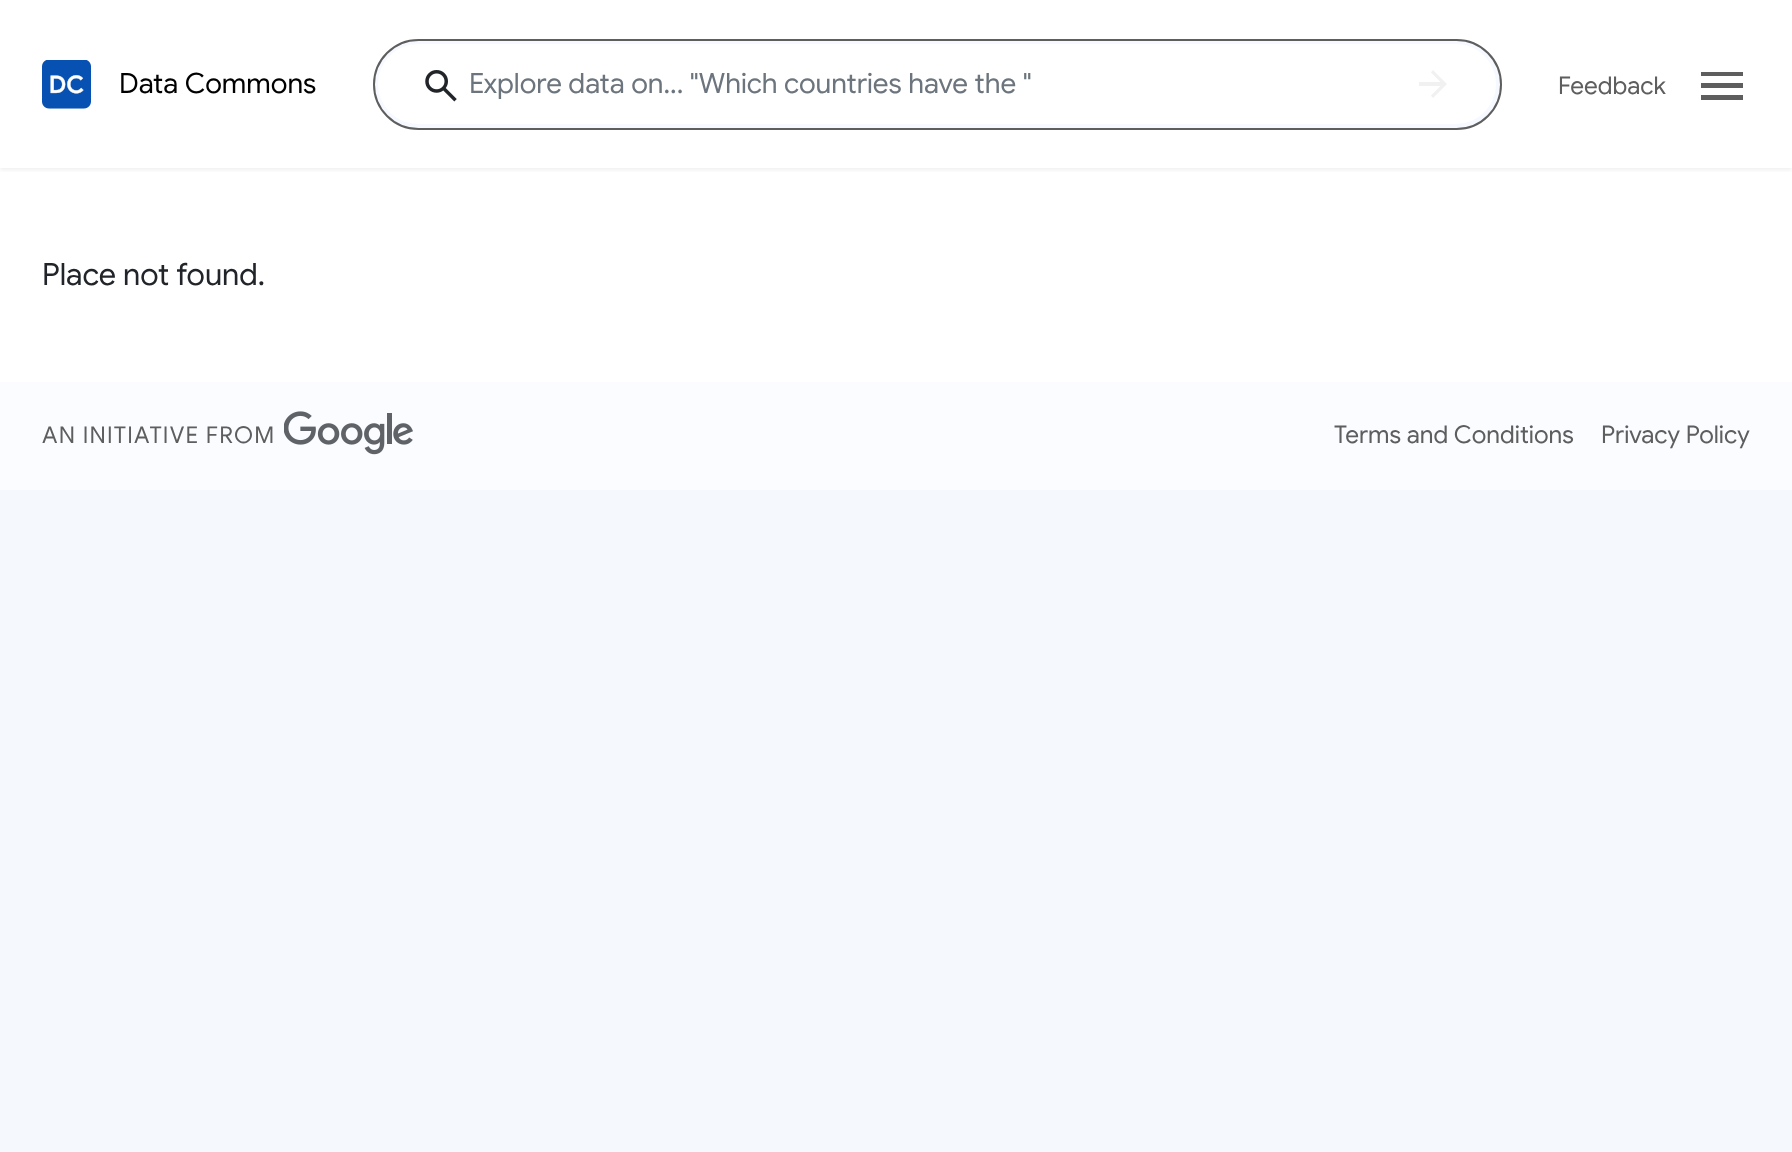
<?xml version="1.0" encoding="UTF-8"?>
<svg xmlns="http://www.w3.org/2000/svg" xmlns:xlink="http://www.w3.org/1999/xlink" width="1792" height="1152">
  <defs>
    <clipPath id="clip1"><rect x="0" y="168" width="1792" height="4" /></clipPath>
  </defs>
  <rect width="100%" height="100%" fill="#ffffff" />
  <g clip-path="url(#clip1)">
    <rect y="2" width="1792" height="168" fill="#5e5e5e" fill-opacity="0.1" filter="blur(2px)" />
  </g>
  <image x="42" y="60" width="49" height="49" xlink:href="image1.png" />
  <rect x="374" y="40" width="1127" height="89" rx="44.5" fill="#f6f9ff" stroke="#5e5e5e" stroke-width="2" />
  <rect x="378" y="44" width="1118" height="80" rx="40" fill="#ffffff" />
  <image x="425" y="70" width="32" height="32" xlink:href="image2.png" />
  <path d="M 1440.5 86 h -21.5 v -4 h 21.5 l -9.5 -9.5 l 2 -2.5 l 14 14 l -14 14 l -2 -2.5 z" fill="#f1f1f1" />
  <path d="M 1701 100 v -5 h 42 v 5 z m 0 -12 v -5 h 42 v 5 z m 0 -12 v -4 h 42 v 4 z" fill="#5e5e5e" />
  <path d="M -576 382 v 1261 h 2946 v -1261 h -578 v 108 h -1792 v -108 z" fill="#f5f9fe" />
  <rect y="382" width="1792" height="108" fill="#fafcff" />
  <image x="284" y="411" width="129" height="44" xlink:href="image3.png" />
  <text x="119" y="93" style="font-family: Google Sans; font-size: 28px; fill: #000000">Data Commons</text>
  <text x="469" y="93" style="font-family: Google Sans; font-size: 28px; fill: #6c757d">Explore data on... "Which countries have the "</text>
  <text x="1558" y="94" style="font-family: Google Sans; font-size: 24.5px; fill: #5e5e5e">Feedback</text>
  <text x="42" y="285" style="font-family: Google Sans; font-size: 30.75px; fill: #212529">Place not found.</text>
  <text x="42" y="443" style="font-family: Google Sans; font-size: 23.1px; letter-spacing: 1.2px; fill: #5e5e5e">AN INITIATIVE FROM</text>
  <text x="1334" y="443" style="font-family: Google Sans; font-size: 24.5px; fill: #5e5e5e">Terms and Conditions</text>
  <text x="1601" y="443" style="font-family: Google Sans; font-size: 24.5px; fill: #5e5e5e">Privacy Policy</text>
</svg>
